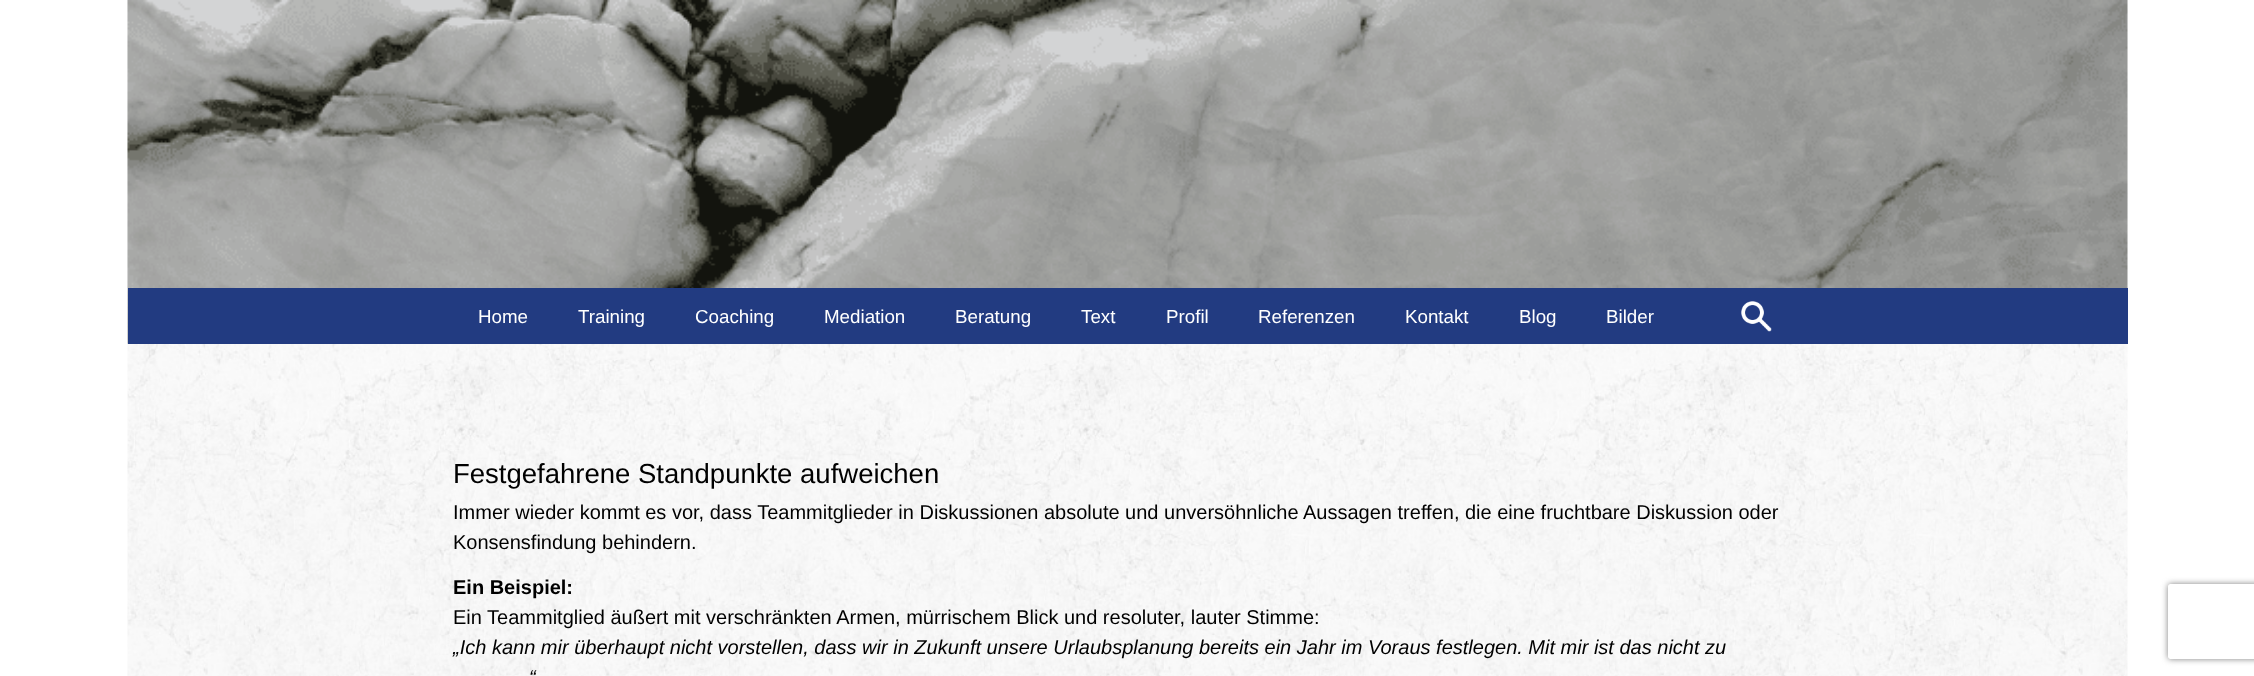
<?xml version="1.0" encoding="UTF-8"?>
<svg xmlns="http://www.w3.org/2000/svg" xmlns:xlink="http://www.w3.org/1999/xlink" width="2254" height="676">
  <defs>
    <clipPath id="clip1"><path d="M 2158 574 h 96 v 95 h -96 z m 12.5 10 h 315 c 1.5 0 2.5 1 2.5 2.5 v 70 c 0 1.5 -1 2.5 -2.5 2.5 h -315 c -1.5 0 -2.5 -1 -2.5 -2.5 v -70 c 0 -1.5 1 -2.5 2.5 -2.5 z" clip-rule="evenodd" /></clipPath>
  </defs>
  <rect width="100%" height="100%" fill="#ffffff" />
  <image x="127" y="0" width="2001" height="676" xlink:href="image1.png" />
  <image x="127" y="0" width="2001" height="344" xlink:href="image2.png" />
  <rect x="128" y="288" width="2000" height="56" fill="#223b81" />
  <image x="1741" y="301" width="31" height="31" xlink:href="image3.png" />
  <g clip-path="url(#clip1)">
    <rect x="2168" y="584" width="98" height="75" rx="2.5" fill="#808080" filter="blur(3px)" />
  </g>
  <text x="478" y="323" style="font-family: Liberation Sans; font-size: 18.75px; fill: #ffffff">Home</text>
  <text x="578" y="323" style="font-family: Liberation Sans; font-size: 18.75px; fill: #ffffff">Training</text>
  <text x="695" y="323" style="font-family: Liberation Sans; font-size: 18.75px; fill: #ffffff">Coaching</text>
  <text x="824" y="323" style="font-family: Liberation Sans; font-size: 18.75px; fill: #ffffff">Mediation</text>
  <text x="955" y="323" style="font-family: Liberation Sans; font-size: 18.75px; fill: #ffffff">Beratung</text>
  <text x="1081" y="323" style="font-family: Liberation Sans; font-size: 18.75px; fill: #ffffff">Text</text>
  <text x="1166" y="323" style="font-family: Liberation Sans; font-size: 18.75px; fill: #ffffff">Profil</text>
  <text x="1258" y="323" style="font-family: Liberation Sans; font-size: 18.75px; fill: #ffffff">Referenzen</text>
  <text x="1405" y="323" style="font-family: Liberation Sans; font-size: 18.75px; fill: #ffffff">Kontakt</text>
  <text x="1519" y="323" style="font-family: Liberation Sans; font-size: 18.75px; fill: #ffffff">Blog</text>
  <text x="1606" y="323" style="font-family: Liberation Sans; font-size: 18.75px; fill: #ffffff">Bilder</text>
  <text x="453" y="483" style="font-family: Liberation Sans; font-size: 27.5px; fill: #000000">Festgefahrene Standpunkte aufweichen</text>
  <text x="453" y="519" style="font-family: Liberation Sans; font-size: 20px; fill: #000000">Immer wieder kommt es vor, dass Teammitglieder in Diskussionen absolute und unversöhnliche Aussagen treffen, die eine fruchtbare Diskussion oder</text>
  <text x="453" y="549" style="font-family: Liberation Sans; font-size: 20px; fill: #000000">Konsensfindung behindern.</text>
  <text x="453" y="594" style="font-family: Liberation Sans; font-size: 20px; font-weight: bold; fill: #000000">Ein Beispiel:</text>
  <text x="453" y="624" style="font-family: Liberation Sans; font-size: 20px; fill: #000000">Ein Teammitglied äußert mit verschränkten Armen, mürrischem Blick und resoluter, lauter Stimme:</text>
  <text x="453" y="654" style="font-family: Liberation Sans; font-size: 20px; font-style: italic; fill: #000000">„Ich kann mir überhaupt nicht vorstellen, dass wir in Zukunft unsere Urlaubsplanung bereits ein Jahr im Voraus festlegen. Mit mir ist das nicht zu</text>
  <text x="529" y="684" style="font-family: Liberation Sans; font-size: 20px; font-style: italic; fill: #000000">“</text>
</svg>
